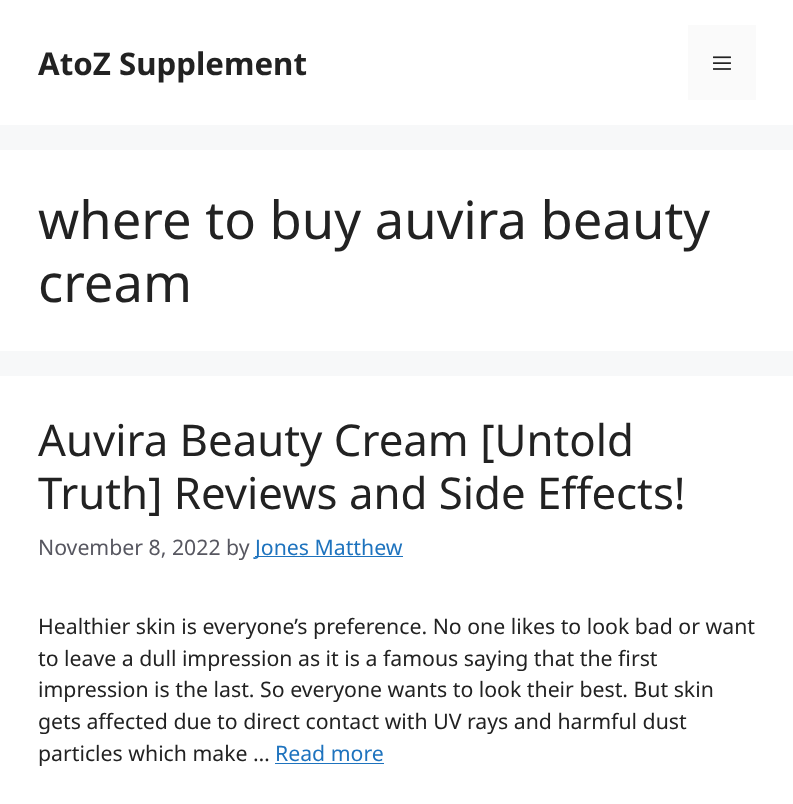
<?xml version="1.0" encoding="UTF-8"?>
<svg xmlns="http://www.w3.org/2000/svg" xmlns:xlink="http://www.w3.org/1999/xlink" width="793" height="804">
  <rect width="100%" height="100%" fill="#f7f8f9" />
  <rect width="793" height="125" fill="#ffffff" />
  <rect x="688" y="25" width="68" height="75" fill="#fafafa" />
  <image x="713" y="56" width="18" height="14" xlink:href="image1.png" />
  <rect y="150" width="793" height="201" fill="#ffffff" />
  <rect y="376" width="793" height="428" fill="#ffffff" />
  <rect x="255" y="556" width="148" height="1" fill="#1e73be" />
  <rect x="275" y="763" width="109" height="1" fill="#1e73be" />
  <text x="38" y="75" style="font-family: Noto Sans; font-size: 31.25px; font-weight: bold; fill: #222222">AtoZ Supplement</text>
  <text x="38" y="239" style="font-family: Noto Sans; font-size: 52.5px; fill: #222222">where to buy auvira beauty</text>
  <text x="38" y="302" style="font-family: Noto Sans; font-size: 52.5px; fill: #222222">cream</text>
  <text x="38" y="456" style="font-family: Noto Sans; font-size: 43.75px; fill: #222222">Auvira Beauty Cream [Untold</text>
  <text x="38" y="509" style="font-family: Noto Sans; font-size: 43.75px; fill: #222222">Truth] Reviews and Side Effects!</text>
  <text x="38" y="555" style="font-family: Noto Sans; font-size: 21.25px; fill: #575760">November 8, 2022 by</text>
  <text x="255" y="555" style="font-family: Noto Sans; font-size: 21.25px; fill: #1e73be">Jones Matthew</text>
  <text x="38" y="634" style="font-family: Noto Sans; font-size: 21.25px; fill: #222222">Healthier skin is everyone’s preference. No one likes to look bad or want</text>
  <text x="38" y="666" style="font-family: Noto Sans; font-size: 21.25px; fill: #222222">to leave a dull impression as it is a famous saying that the first</text>
  <text x="38" y="697" style="font-family: Noto Sans; font-size: 21.25px; fill: #222222">impression is the last. So everyone wants to look their best. But skin</text>
  <text x="38" y="729" style="font-family: Noto Sans; font-size: 21.25px; fill: #222222">gets affected due to direct contact with UV rays and harmful dust</text>
  <text x="38" y="761" style="font-family: Noto Sans; font-size: 21.25px; fill: #222222">particles which make …</text>
  <text x="275" y="761" style="font-family: Noto Sans; font-size: 21.25px; fill: #1e73be">Read more</text>
</svg>
